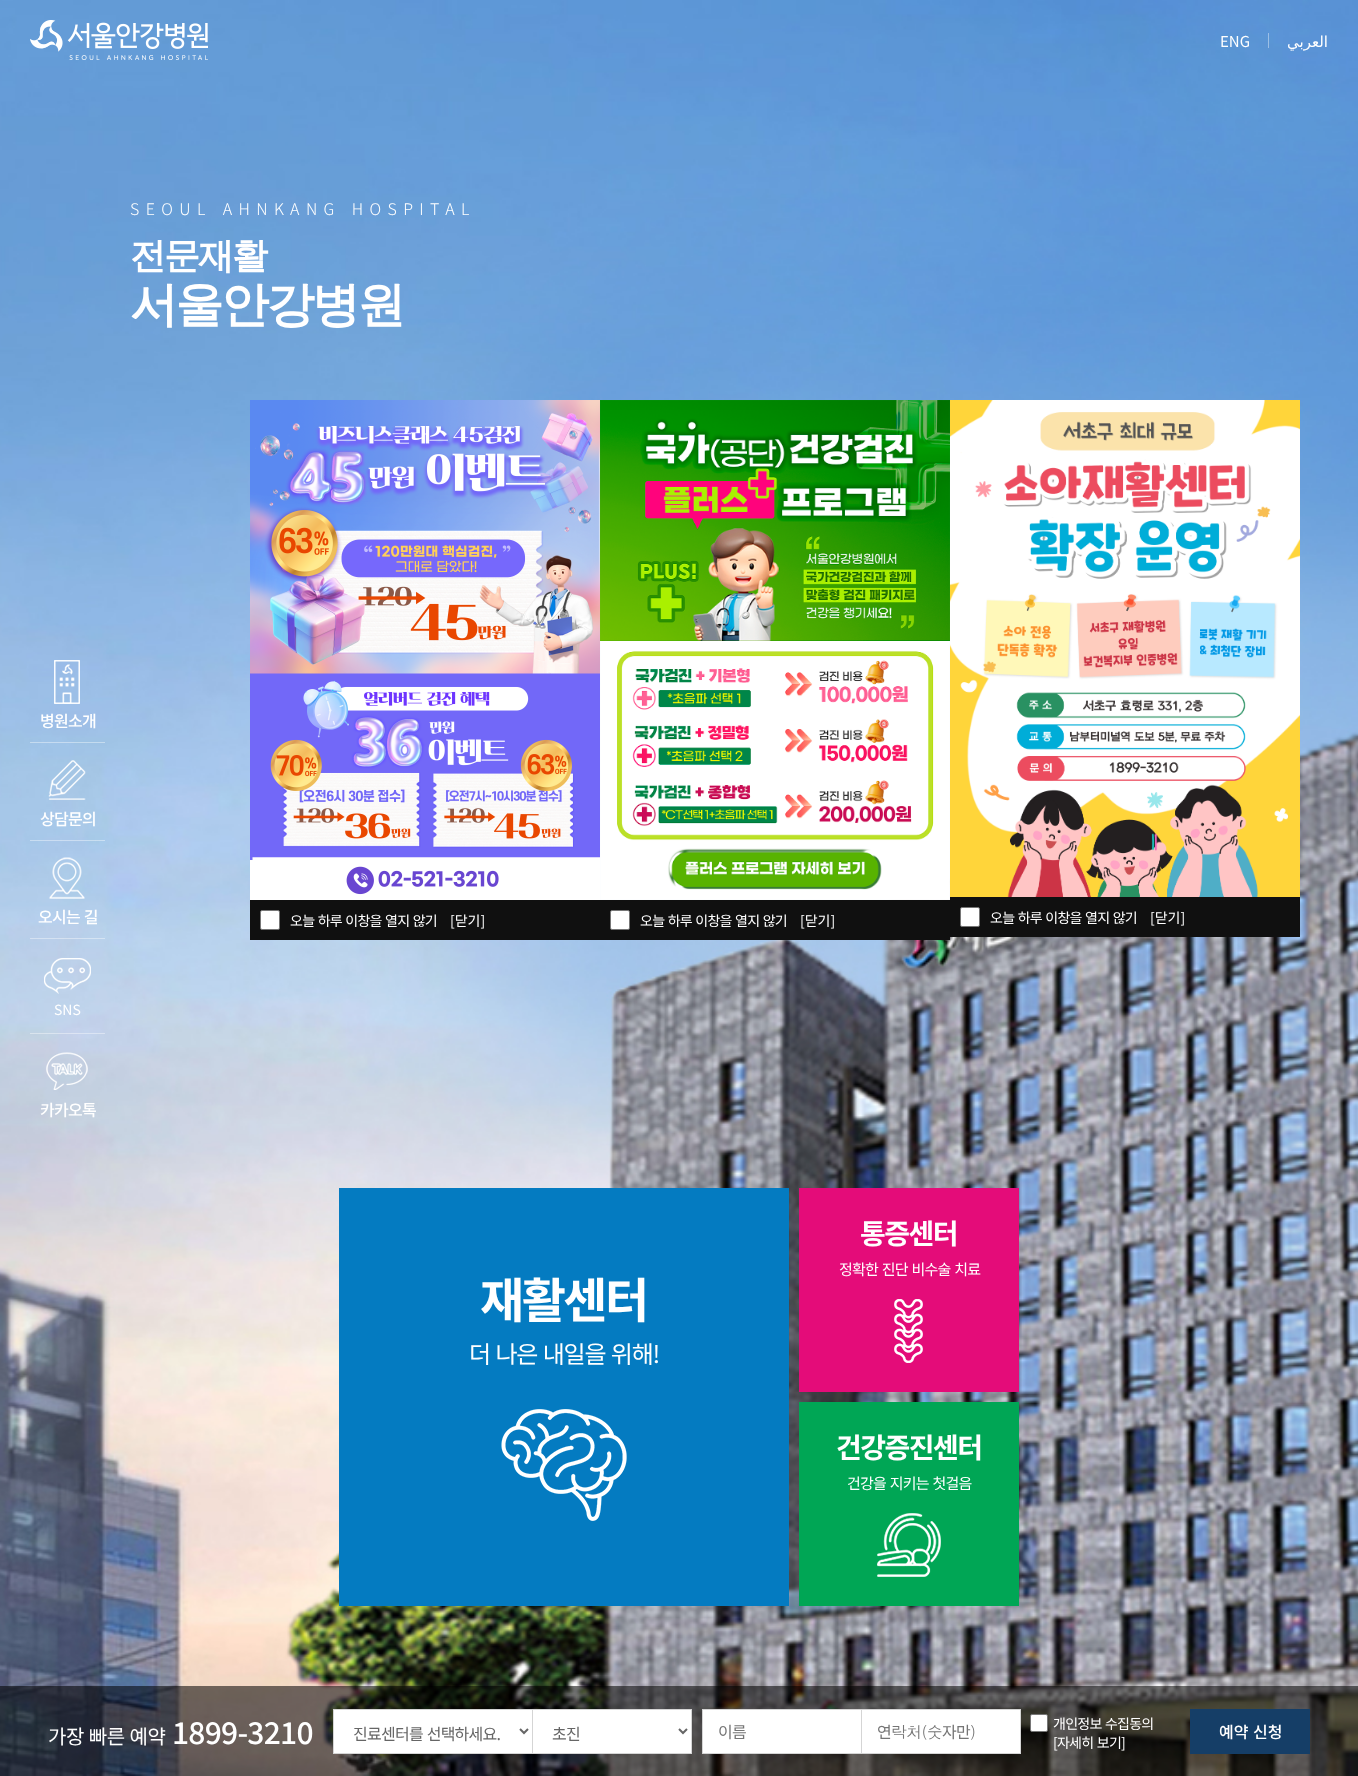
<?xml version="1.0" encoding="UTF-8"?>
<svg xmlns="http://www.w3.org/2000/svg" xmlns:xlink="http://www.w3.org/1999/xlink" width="1358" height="1776">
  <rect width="100%" height="100%" fill="#ffffff" />
  <image x="0" y="0" width="1358" height="1776" xlink:href="image2.png" />
  <image x="30" y="20" width="178" height="40" xlink:href="image1.png" />
  <rect x="1268" y="33" width="1" height="15" fill="#ffffff" fill-opacity="0.4" />
  <image x="54" y="660" width="26" height="44" xlink:href="image3.png" />
  <rect x="30" y="742" width="75" height="1" fill="#ffffff" fill-opacity="0.4" />
  <image x="48" y="760" width="38" height="40" xlink:href="image4.png" />
  <rect x="30" y="840" width="75" height="1" fill="#ffffff" fill-opacity="0.4" />
  <image x="49" y="857" width="36" height="42" xlink:href="image5.png" />
  <rect x="30" y="938" width="75" height="1" fill="#ffffff" fill-opacity="0.4" />
  <image x="44" y="958" width="47" height="36" xlink:href="image6.png" />
  <rect x="30" y="1033" width="75" height="1" fill="#ffffff" fill-opacity="0.4" />
  <image x="46" y="1052" width="42" height="38" xlink:href="image7.png" />
  <rect x="799" y="1188" width="220" height="204" fill="#e40c79" />
  <image x="894" y="1299" width="29" height="64" xlink:href="image8.png" />
  <rect x="339" y="1188" width="450" height="418" fill="#047bc1" />
  <image x="501" y="1409" width="126" height="112" xlink:href="image9.png" />
  <rect x="799" y="1402" width="220" height="204" fill="#00a655" />
  <image x="877" y="1513" width="64" height="64" xlink:href="image10.png" />
  <rect y="1686" width="1358" height="90" fill="#000000" fill-opacity="0.55" />
  <rect x="333.5" y="1709.5" width="199" height="44" fill="#ffffff" stroke="#d5d5d5" />
  <path d="M 520 1729 l 4 4 l 4 -4" fill="none" stroke="#666666" stroke-width="2" />
  <rect x="532.5" y="1709.5" width="159" height="44" fill="#ffffff" stroke="#d5d5d5" />
  <path d="M 679 1729 l 4 4 l 4 -4" fill="none" stroke="#666666" stroke-width="2" />
  <rect x="702.5" y="1709.5" width="159" height="44" fill="#ffffff" stroke="#d5d5d5" />
  <rect x="861.5" y="1709.5" width="159" height="44" fill="#ffffff" stroke="#d5d5d5" />
  <rect x="1030.5" y="1714.5" width="17" height="17" rx="1.5" fill="#ffffff" stroke="#767676" />
  <rect x="1190" y="1709" width="120" height="45" fill="#153e67" />
  <image x="250" y="400" width="350" height="500" xlink:href="image11.png" />
  <rect x="250" y="900" width="700" height="40" fill="#101010" />
  <rect x="260.5" y="910.5" width="19" height="19" rx="1.5" fill="#ffffff" stroke="#767676" />
  <image x="600" y="400" width="350" height="500" xlink:href="image12.png" />
  <rect x="610.5" y="910.5" width="19" height="19" rx="1.5" fill="#ffffff" stroke="#767676" />
  <image x="950" y="400" width="350" height="497" xlink:href="image13.png" />
  <rect x="950" y="897" width="350" height="40" fill="#101010" />
  <rect x="960.5" y="907.5" width="19" height="19" rx="1.5" fill="#ffffff" stroke="#767676" />
  <text x="1220" y="47" style="font-family: Noto Sans KR; font-size: 15px; fill: #ffffff">ENG</text>
  <text x="1328" y="47" style="font-family: DejaVu Sans; font-size: 15px; direction: rtl; fill: #ffffff">العربي</text>
  <text x="40" y="727" style="font-family: Noto Sans KR; font-size: 16px; font-weight: 500; letter-spacing: -0.75px; fill: #ffffff">병원소개</text>
  <text x="40" y="825" style="font-family: Noto Sans KR; font-size: 16px; font-weight: 500; letter-spacing: -0.75px; fill: #ffffff">상담문의</text>
  <text x="38" y="923" word-spacing="1" style="font-family: Noto Sans KR; font-size: 16px; font-weight: 500; letter-spacing: -0.75px; fill: #ffffff">오시는 길</text>
  <text x="54" y="1015" style="font-family: Noto Sans KR; font-size: 14px; fill: #ffffff">SNS</text>
  <text x="40" y="1116" style="font-family: Noto Sans KR; font-size: 16px; font-weight: 500; letter-spacing: -0.75px; fill: #ffffff">카카오톡</text>
  <text x="130" y="215" word-spacing="1" style="font-family: Noto Sans KR; font-size: 16px; font-weight: 300; letter-spacing: 6.4px; fill: #ffffff">SEOUL AHNKANG HOSPITAL</text>
  <text x="130" y="268" style="font-family: WenQuanYi Zen Hei; font-size: 36px; font-weight: bold; letter-spacing: -2px; fill: #ffffff">전문재활</text>
  <text x="130" y="321" style="font-family: WenQuanYi Zen Hei; font-size: 48px; font-weight: bold; letter-spacing: -2.5px; fill: #ffffff">서울안강병원</text>
  <text x="860" y="1244" style="font-family: Noto Sans KR; font-size: 28px; font-weight: bold; letter-spacing: -1.5px; fill: #ffffff">통증센터</text>
  <text x="839" y="1275" word-spacing="1" style="font-family: Noto Sans KR; font-size: 15px; letter-spacing: -0.75px; fill: #ffffff">정확한 진단 비수술 치료</text>
  <text x="480" y="1318" style="font-family: Noto Sans KR; font-size: 48px; font-weight: bold; letter-spacing: -2.5px; fill: #ffffff">재활센터</text>
  <text x="469" y="1363" word-spacing="1.5" style="font-family: Noto Sans KR; font-size: 24px; letter-spacing: -1.25px; fill: #ffffff">더 나은 내일을 위해!</text>
  <text x="836" y="1458" style="font-family: Noto Sans KR; font-size: 28px; font-weight: bold; letter-spacing: -1.5px; fill: #ffffff">건강증진센터</text>
  <text x="847" y="1489" word-spacing="1" style="font-family: Noto Sans KR; font-size: 15px; letter-spacing: -0.75px; fill: #ffffff">건강을 지키는 첫걸음</text>
  <text x="48" y="1744" word-spacing="1" style="font-family: Noto Sans KR; font-size: 20px; letter-spacing: -0.5px; fill: #ffffff">가장 빠른 예약</text>
  <text x="172" y="1744" style="font-family: Noto Sans KR; font-size: 30px; font-weight: 500; letter-spacing: -0.75px; fill: #ffffff">1899-3210</text>
  <text x="353" y="1740" word-spacing="1" style="font-family: Noto Sans KR; font-size: 16px; letter-spacing: -0.75px; fill: #666666">진료센터를 선택하세요.</text>
  <text x="552" y="1740" style="font-family: Noto Sans KR; font-size: 16px; letter-spacing: -0.75px; fill: #666666">초진</text>
  <text x="718" y="1738" style="font-family: Noto Sans KR; font-size: 16px; letter-spacing: -0.75px; fill: #757575">이름</text>
  <text x="877" y="1738" style="font-family: Noto Sans KR; font-size: 16px; letter-spacing: -0.75px; fill: #757575">연</text>
  <text x="891" y="1738" style="font-family: Dotum; font-size: 16px; letter-spacing: -0.75px; fill: #757575">락처(숫</text>
  <text x="942" y="1738" style="font-family: Noto Sans KR; font-size: 16px; letter-spacing: -0.75px; fill: #757575">자만</text>
  <text x="970" y="1738" style="font-family: Dotum; font-size: 16px; letter-spacing: -0.75px; fill: #757575">)</text>
  <text x="1053" y="1729" word-spacing="1" style="font-family: Noto Sans KR; font-size: 14px; letter-spacing: -0.75px; fill: #ffffff">개인정보 수집동의</text>
  <text x="1053" y="1748" word-spacing="1" style="font-family: Noto Sans KR; font-size: 14px; letter-spacing: -0.75px; fill: #ffffff">[자세히 보기]</text>
  <text x="1219" y="1738" word-spacing="1" style="font-family: Noto Sans KR; font-size: 16px; font-weight: 500; fill: #ffffff">예약 신청</text>
  <text x="290" y="926" word-spacing="1" style="font-family: Noto Sans KR; font-size: 14px; letter-spacing: -0.75px; fill: #ffffff">오늘 하루 이창을 열지 않기</text>
  <text x="450" y="926" style="font-family: Noto Sans KR; font-size: 14px; fill: #ffffff">[닫기]</text>
  <text x="640" y="926" word-spacing="1" style="font-family: Noto Sans KR; font-size: 14px; letter-spacing: -0.75px; fill: #ffffff">오늘 하루 이창을 열지 않기</text>
  <text x="800" y="926" style="font-family: Noto Sans KR; font-size: 14px; fill: #ffffff">[닫기]</text>
  <text x="990" y="923" word-spacing="1" style="font-family: Noto Sans KR; font-size: 14px; letter-spacing: -0.75px; fill: #ffffff">오늘 하루 이창을 열지 않기</text>
  <text x="1150" y="923" style="font-family: Noto Sans KR; font-size: 14px; fill: #ffffff">[닫기]</text>
</svg>
